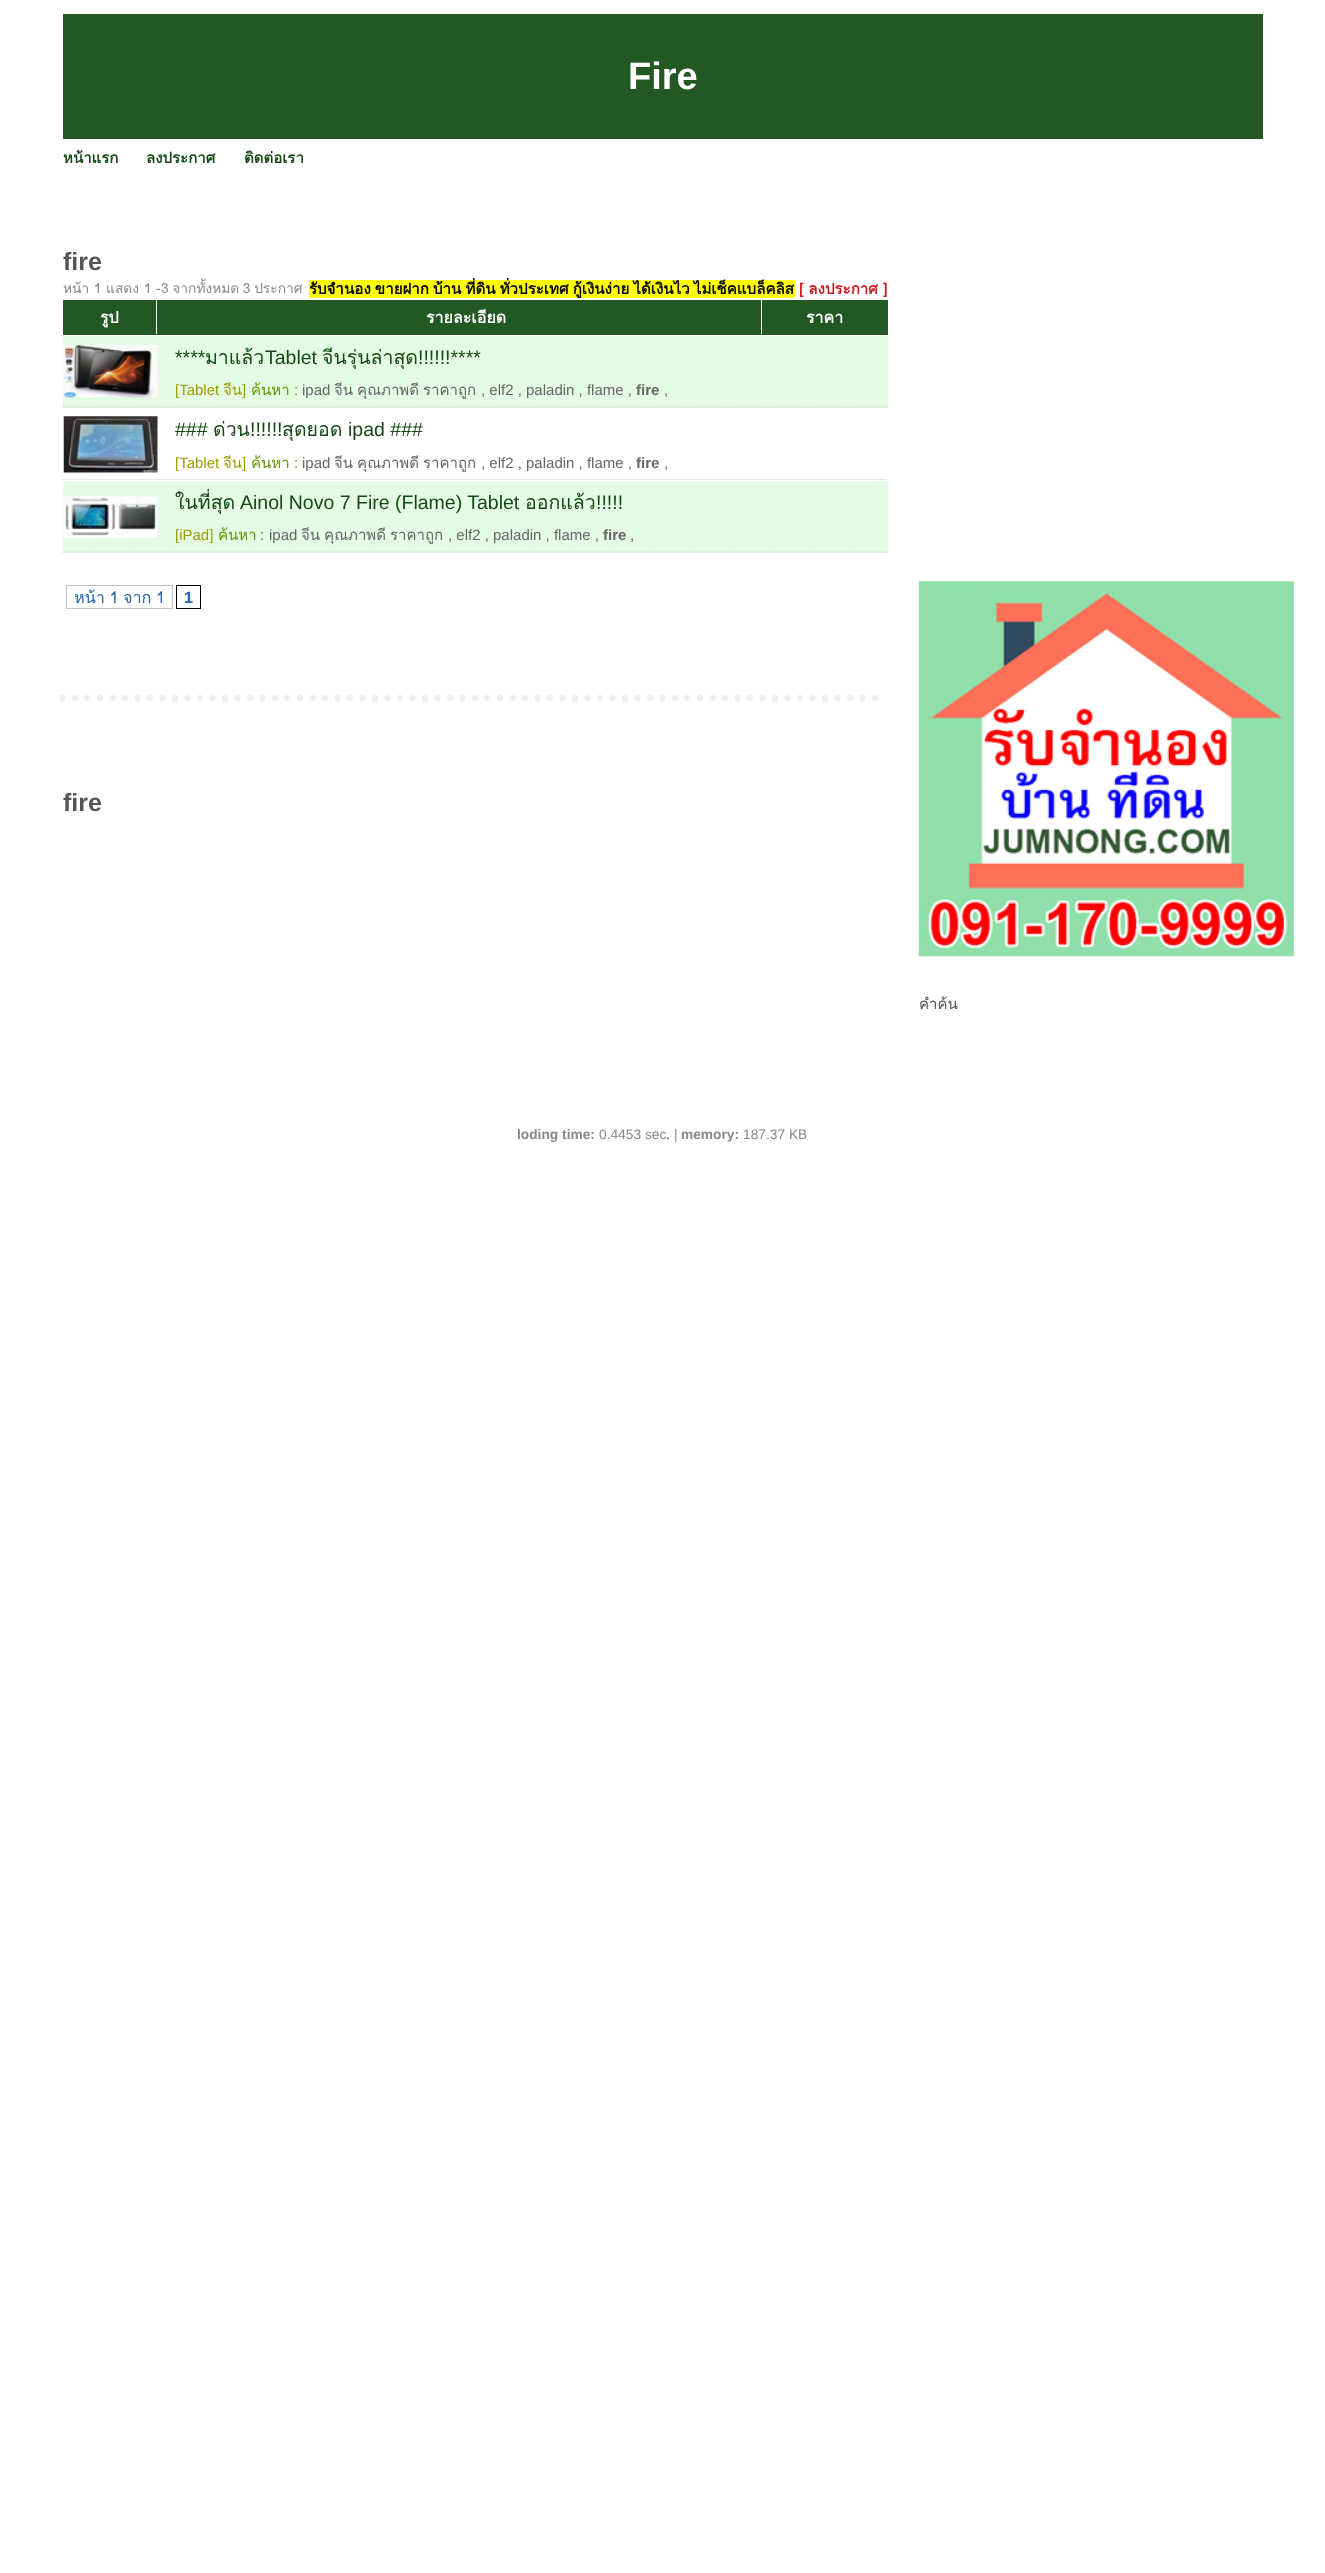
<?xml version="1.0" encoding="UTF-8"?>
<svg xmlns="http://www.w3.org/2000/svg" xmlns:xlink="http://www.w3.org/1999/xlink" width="1325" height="2573">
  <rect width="100%" height="100%" fill="#ffffff" />
  <rect x="63" y="14" width="1200" height="125" fill="#225822" />
  <path d="M 62.5 698 h 825" fill="none" stroke="#eeeeee" stroke-width="6.2" stroke-linecap="round" stroke-dasharray="0 12.5" />
  <rect x="309" y="280" width="486" height="18" fill="#ffff00" />
  <rect x="63" y="300" width="825" height="35" fill="#225822" />
  <rect x="156" y="300" width="1" height="34" fill="#ffffff" />
  <rect x="761" y="300" width="1" height="34" fill="#ffffff" />
  <rect x="63" y="336" width="825" height="72" fill="#e4fbe4" />
  <path d="M 62.5 407 h 95" fill="none" stroke="#d5d5d5" stroke-width="1.2" stroke-dasharray="1.25 1.25" />
  <image x="63" y="345" width="95" height="53" xlink:href="image1.png" />
  <path d="M 170 407 h 592.5" fill="none" stroke="#d5d5d5" stroke-width="1.2" stroke-dasharray="1.25 1.25" />
  <path d="M 157.5 407 h 12.5" fill="none" stroke="#d5d5d5" stroke-width="1.2" stroke-dasharray="1.25 1.25" />
  <path d="M 762.5 407 h 125" fill="none" stroke="#d5d5d5" stroke-width="1.2" stroke-dasharray="1.25 1.25" />
  <path d="M 62.5 479.5 h 95" fill="none" stroke="#d5d5d5" stroke-width="1.2" stroke-dasharray="1.25 1.25" />
  <image x="63" y="416" width="95" height="57" xlink:href="image2.png" />
  <path d="M 170 479.5 h 592.5" fill="none" stroke="#d5d5d5" stroke-width="1.2" stroke-dasharray="1.25 1.25" />
  <path d="M 157.5 479.5 h 12.5" fill="none" stroke="#d5d5d5" stroke-width="1.2" stroke-dasharray="1.25 1.25" />
  <path d="M 762.5 479.5 h 125" fill="none" stroke="#d5d5d5" stroke-width="1.2" stroke-dasharray="1.25 1.25" />
  <rect x="63" y="481" width="825" height="72" fill="#e4fbe4" />
  <rect x="63" y="480" width="825" height="1" fill="#ffffff" />
  <path d="M 62.5 552 h 95" fill="none" stroke="#d5d5d5" stroke-width="1.2" stroke-dasharray="1.25 1.25" />
  <image x="63" y="496" width="95" height="42" xlink:href="image3.png" />
  <path d="M 170 552 h 592.5" fill="none" stroke="#d5d5d5" stroke-width="1.2" stroke-dasharray="1.25 1.25" />
  <path d="M 157.5 552 h 12.5" fill="none" stroke="#d5d5d5" stroke-width="1.2" stroke-dasharray="1.25 1.25" />
  <path d="M 762.5 552 h 125" fill="none" stroke="#d5d5d5" stroke-width="1.2" stroke-dasharray="1.25 1.25" />
  <rect x="66.5" y="585.5" width="106" height="23" fill="none" stroke="#bfbfbf" />
  <rect x="176.5" y="585.5" width="24" height="23" fill="none" stroke="#000000" />
  <image x="918" y="581" width="376" height="376" xlink:href="image4.png" />
  <text x="628" y="89" style="font-family: Liberation Sans; font-size: 38px; font-weight: bold; fill: #ffffff">Fire</text>
  <text x="63" y="163" style="font-family: Loma; font-size: 15px; font-weight: bold; fill: #144914">หน้าแรก</text>
  <text x="146" y="163" style="font-family: Loma; font-size: 15px; font-weight: bold; fill: #144914">ลงประกาศ</text>
  <text x="244" y="163" style="font-family: Loma; font-size: 15px; font-weight: bold; fill: #144914">ติดต่อเรา</text>
  <text x="63" y="270" style="font-family: Liberation Sans; font-size: 25px; font-weight: bold; fill: #555555">fire</text>
  <text x="63" y="293" style="font-family: Loma; font-size: 13.75px; fill: #888888">หน้า 1 แสดง 1 -</text>
  <text x="161" y="293" word-spacing="-1" style="font-family: Loma; font-size: 13.75px; fill: #888888">3 จากทั้งหมด 3 ประกาศ</text>
  <text x="309" y="294" word-spacing="-1" style="font-family: Loma; font-size: 15.1px; font-weight: bold; fill: #000000">รับจำนอง ขายฝาก บ้าน ที่ดิน ทั่วประเทศ กู้เงินง่าย ได้เงินไว ไม่เช็คแบล็คลิส</text>
  <text x="799" y="294" style="font-family: Loma; font-size: 15.1px; font-weight: bold; fill: #ce181e">[ ลงประกาศ ]</text>
  <text x="100" y="323" style="font-family: Loma; font-size: 16px; font-weight: bold; fill: #ffffff">รูป</text>
  <text x="426" y="323" style="font-family: Loma; font-size: 16px; font-weight: bold; fill: #ffffff">รายละเอียด</text>
  <text x="806" y="323" style="font-family: Loma; font-size: 16px; font-weight: bold; fill: #ffffff">ราคา</text>
  <text x="175" y="364" style="font-family: Liberation Sans; font-size: 19.5px; fill: #144914">****</text>
  <text x="205" y="364" style="font-family: Loma; font-size: 19.5px; fill: #144914">มาแล้ว</text>
  <text x="265" y="364" style="font-family: Liberation Sans; font-size: 19.5px; fill: #144914">Tablet</text>
  <text x="322" y="364" style="font-family: Loma; font-size: 19.5px; fill: #144914">จีนรุ่นล่าสุด</text>
  <text x="418" y="364" style="font-family: Liberation Sans; font-size: 19.5px; fill: #144914">!!!!!!****</text>
  <text x="175" y="395" style="font-family: Liberation Sans; font-size: 15px; fill: #9d9d00">[Tablet</text>
  <text x="223" y="395" style="font-family: Loma; font-size: 15px; fill: #9d9d00">จีน</text>
  <text x="242" y="395" style="font-family: Liberation Sans; font-size: 15px; fill: #9d9d00">]</text>
  <text x="251" y="395" style="font-family: Loma; font-size: 15px; fill: #699300">ค้นหา</text>
  <text x="294" y="395" style="font-family: Liberation Sans; font-size: 15px; fill: #699300">:</text>
  <text x="302" y="395" style="font-family: Liberation Sans; font-size: 15px; fill: #666666">ipad</text>
  <text x="334" y="395" word-spacing="-1" style="font-family: Loma; font-size: 15px; fill: #666666">จีน คุณภาพดี ราคาถูก</text>
  <text x="481" y="395" style="font-family: Liberation Sans; font-size: 15px; fill: #666666">, elf2 , paladin , flame ,</text>
  <text x="636" y="395" style="font-family: Liberation Sans; font-size: 15px; font-weight: bold; fill: #666666">fire</text>
  <text x="664" y="395" style="font-family: Liberation Sans; font-size: 15px; fill: #666666">,</text>
  <text x="175" y="436" style="font-family: Liberation Sans; font-size: 19.5px; fill: #144914">###</text>
  <text x="213" y="436" style="font-family: Loma; font-size: 19.5px; fill: #144914">ด่วน</text>
  <text x="250" y="436" style="font-family: Liberation Sans; font-size: 19.5px; fill: #144914">!!!!!!</text>
  <text x="282" y="436" style="font-family: Loma; font-size: 19.5px; fill: #144914">สุดยอด</text>
  <text x="348" y="436" style="font-family: Liberation Sans; font-size: 19.5px; fill: #144914">ipad ###</text>
  <text x="175" y="468" style="font-family: Liberation Sans; font-size: 15px; fill: #9d9d00">[Tablet</text>
  <text x="223" y="468" style="font-family: Loma; font-size: 15px; fill: #9d9d00">จีน</text>
  <text x="242" y="468" style="font-family: Liberation Sans; font-size: 15px; fill: #9d9d00">]</text>
  <text x="251" y="468" style="font-family: Loma; font-size: 15px; fill: #699300">ค้นหา</text>
  <text x="294" y="468" style="font-family: Liberation Sans; font-size: 15px; fill: #699300">:</text>
  <text x="302" y="468" style="font-family: Liberation Sans; font-size: 15px; fill: #666666">ipad</text>
  <text x="334" y="468" word-spacing="-1" style="font-family: Loma; font-size: 15px; fill: #666666">จีน คุณภาพดี ราคาถูก</text>
  <text x="481" y="468" style="font-family: Liberation Sans; font-size: 15px; fill: #666666">, elf2 , paladin , flame ,</text>
  <text x="636" y="468" style="font-family: Liberation Sans; font-size: 15px; font-weight: bold; fill: #666666">fire</text>
  <text x="664" y="468" style="font-family: Liberation Sans; font-size: 15px; fill: #666666">,</text>
  <text x="175" y="509" style="font-family: Loma; font-size: 19.5px; fill: #144914">ในที่สุด</text>
  <text x="240" y="509" style="font-family: Liberation Sans; font-size: 19.5px; fill: #144914">Ainol Novo 7 Fire (Flame) Tablet</text>
  <text x="525" y="509" style="font-family: Loma; font-size: 19.5px; fill: #144914">ออกแล้ว</text>
  <text x="596" y="509" style="font-family: Liberation Sans; font-size: 19.5px; fill: #144914">!!!!!</text>
  <text x="175" y="540" style="font-family: Liberation Sans; font-size: 15px; fill: #9d9d00">[iPad]</text>
  <text x="218" y="540" style="font-family: Loma; font-size: 15px; fill: #699300">ค้นหา</text>
  <text x="260" y="540" style="font-family: Liberation Sans; font-size: 15px; fill: #699300">:</text>
  <text x="269" y="540" style="font-family: Liberation Sans; font-size: 15px; fill: #666666">ipad</text>
  <text x="301" y="540" word-spacing="-1" style="font-family: Loma; font-size: 15px; fill: #666666">จีน คุณภาพดี ราคาถูก</text>
  <text x="448" y="540" style="font-family: Liberation Sans; font-size: 15px; fill: #666666">, elf2 , paladin , flame ,</text>
  <text x="603" y="540" style="font-family: Liberation Sans; font-size: 15px; font-weight: bold; fill: #666666">fire</text>
  <text x="630" y="540" style="font-family: Liberation Sans; font-size: 15px; fill: #666666">,</text>
  <text x="74" y="603" word-spacing="-1" style="font-family: Loma; font-size: 16.25px; fill: #2266aa">หน้า 1 จาก 1</text>
  <text x="184" y="603" style="font-family: Liberation Sans; font-size: 16.25px; font-weight: bold; fill: #2266aa">1</text>
  <text x="63" y="811" style="font-family: Liberation Sans; font-size: 25px; font-weight: bold; fill: #555555">fire</text>
  <text x="919" y="1009" style="font-family: Loma; font-size: 15px; fill: #555555">คำค้น</text>
  <text x="517" y="1139" style="font-family: Liberation Sans; font-size: 13.75px; font-weight: bold; fill: #888888">loding time:</text>
  <text x="599" y="1139" style="font-family: Liberation Sans; font-size: 13.75px; fill: #888888">0.4453 sec</text>
  <text x="666" y="1139" style="font-family: Liberation Sans; font-size: 13.75px; fill: #144914">.</text>
  <text x="674" y="1139" style="font-family: Liberation Sans; font-size: 13.75px; fill: #888888">|</text>
  <text x="681" y="1139" style="font-family: Liberation Sans; font-size: 13.75px; font-weight: bold; fill: #888888">memory:</text>
  <text x="743" y="1139" style="font-family: Liberation Sans; font-size: 13.75px; fill: #888888">187.37 KB</text>
</svg>
